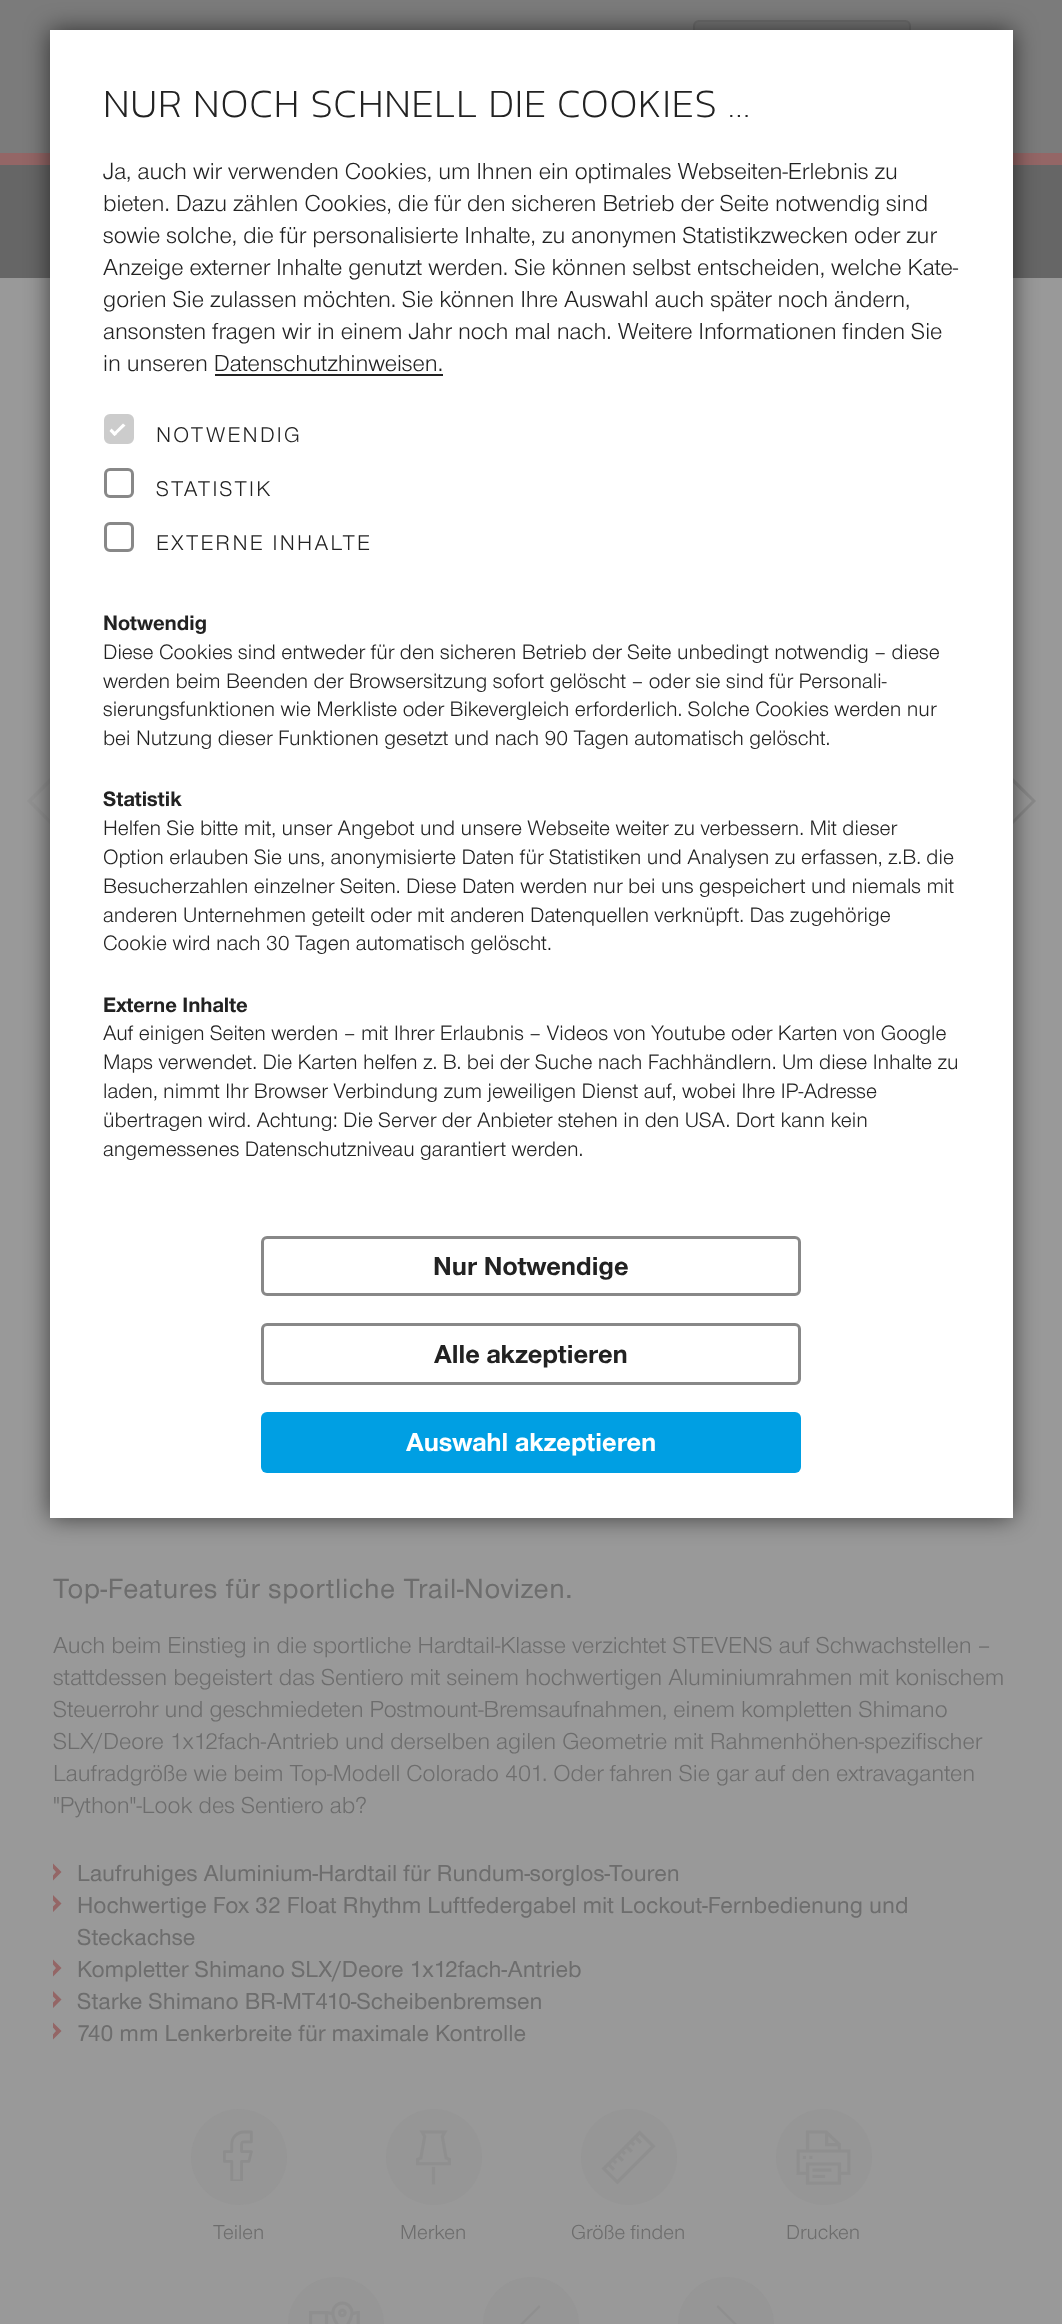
<?xml version="1.0" encoding="UTF-8"?>
<svg xmlns="http://www.w3.org/2000/svg" xmlns:xlink="http://www.w3.org/1999/xlink" width="1062" height="2324">
  <defs>
    <clipPath id="clip1"><rect x="53" y="1863" width="9" height="18" /></clipPath>
    <clipPath id="clip2"><rect x="53" y="1895" width="9" height="18" /></clipPath>
    <clipPath id="clip3"><rect x="53" y="1959" width="9" height="18" /></clipPath>
    <clipPath id="clip4"><rect x="53" y="1991" width="9" height="18" /></clipPath>
    <clipPath id="clip5"><rect x="53" y="2022" width="9" height="18" /></clipPath>
  </defs>
  <rect width="100%" height="100%" fill="#999999" />
  <rect width="1062" height="153" fill="#7b7b7b" />
  <rect y="153" width="1062" height="12" fill="#946666" />
  <rect x="694" y="21" width="216" height="68" rx="5" fill="#747474" stroke="#6d6d6d" stroke-width="2" />
  <rect y="165" width="1062" height="113" fill="#666666" />
  <path d="M 32 801 l 22 -22 l -2 -3 l -25 25 l 25 25 l 2 -2 z" fill="#949494" />
  <path d="M 1036 801 l -25 -25 l -2 3 l 23 22 l -23 23 l 2 2 z" fill="#8a8a8a" />
  <rect x="50" y="30" width="963" height="1488" fill="#000000" fill-opacity="0.6" filter="blur(12px)" />
  <rect x="50" y="30" width="963" height="1488" fill="#ffffff" />
  <rect x="215" y="374" width="228" height="2" fill="#222222" />
  <rect x="105.5" y="415.5" width="27" height="27" rx="4.5" fill="#cccccc" stroke="#cccccc" stroke-width="3" />
  <path d="M 123 423.5 l 2.5 2 l -11 10.5 l -2 -2 z" fill="#ffffff" />
  <path d="M 111.5 428.5 l 5.5 5.5 l -2.5 2 l -5 -5 z" fill="#ffffff" />
  <rect x="105.5" y="469.5" width="27" height="27" rx="4.5" fill="none" stroke="#888888" stroke-width="3" />
  <rect x="105.5" y="523.5" width="27" height="27" rx="4.5" fill="none" stroke="#888888" stroke-width="3" />
  <rect x="262.5" y="1237.5" width="537" height="57" rx="4.5" fill="none" stroke="#888888" stroke-width="3" />
  <rect x="262.5" y="1324.5" width="537" height="59" rx="4.5" fill="none" stroke="#888888" stroke-width="3" />
  <rect x="261" y="1412" width="540" height="61" rx="6" fill="#009fe3" />
  <g clip-path="url(#clip1)">
    <path d="M 52.5 1863 v 5 l 3.5 4 l -3.5 4 v 5 l 9 -9 z" fill="#946666" />
  </g>
  <g clip-path="url(#clip2)">
    <path d="M 52.5 1894.5 v 5.5 l 3.5 3.5 l -3.5 3.5 v 5.5 l 9 -9 z" fill="#946666" />
  </g>
  <g clip-path="url(#clip3)">
    <path d="M 52.5 1959 v 5 l 3.5 4 l -3.5 4 v 5 l 9 -9 z" fill="#946666" />
  </g>
  <g clip-path="url(#clip4)">
    <path d="M 52.5 1990.5 v 5.5 l 3.5 3.5 l -3.5 3.5 v 5.5 l 9 -9 z" fill="#946666" />
  </g>
  <g clip-path="url(#clip5)">
    <path d="M 52.5 2022 v 5 l 3.5 4 l -3.5 4 v 5 l 9 -9 z" fill="#946666" />
  </g>
  <circle cx="239" cy="2157" r="48" fill="#969696" />
  <image x="223" y="2130" width="30" height="51" xlink:href="image1.png" />
  <circle cx="434" cy="2157" r="48" fill="#969696" />
  <image x="416" y="2130" width="35" height="55" xlink:href="image2.png" />
  <circle cx="629" cy="2157" r="48" fill="#969696" />
  <image x="601" y="2130" width="55" height="55" xlink:href="image3.png" />
  <circle cx="824" cy="2157" r="48" fill="#969696" />
  <image x="796" y="2130" width="55" height="55" xlink:href="image4.png" />
  <rect x="288" y="2277" width="96" height="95" rx="48" fill="#969696" />
  <image x="309" y="2301" width="51" height="23" xlink:href="image5.png" />
  <rect x="483" y="2277" width="96" height="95" rx="48" fill="#969696" />
  <path d="M 523 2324.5 l 17.5 -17.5 l -1.5 -2 l -19.5 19.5 l 19.5 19.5 l 1.5 -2 z" fill="#8f8f8f" />
  <rect x="678" y="2277" width="96" height="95" rx="48" fill="#969696" />
  <path d="M 737.5 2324.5 l -19.5 -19.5 l -1.5 2 l 17.5 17.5 l -17.5 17.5 l 1.5 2 z" fill="#8f8f8f" />
  <text x="103" y="117" style="font-family: Kanit; font-size: 40.5px; font-weight: 200; letter-spacing: 0.8px; fill: #222222">NUR NOCH SCHNELL DIE COOKIES …</text>
  <text x="103" y="179" style="font-family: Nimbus; font-size: 24px; fill: #222222">Ja, auch wir verwenden Cookies, um Ihnen ein optimales Webseiten-Erlebnis zu</text>
  <text x="103" y="211" style="font-family: Nimbus; font-size: 24px; fill: #222222">bieten. Dazu zählen Cookies, die für den sicheren Betrieb der Seite notwendig sind</text>
  <text x="103" y="243" style="font-family: Nimbus; font-size: 24px; fill: #222222">sowie solche, die für personalisierte Inhalte, zu anonymen Statistikzwecken oder zur</text>
  <text x="103" y="275" style="font-family: Nimbus; font-size: 24px; fill: #222222">Anzeige externer Inhalte genutzt werden. Sie können selbst entscheiden, welche Kate-</text>
  <text x="103" y="307" style="font-family: Nimbus; font-size: 24px; fill: #222222">gorien Sie zulassen möchten. Sie können Ihre Auswahl auch später noch ändern,</text>
  <text x="103" y="339" style="font-family: Nimbus; font-size: 24px; fill: #222222">ansonsten fragen wir in einem Jahr noch mal nach. Weitere Informationen finden Sie</text>
  <text x="103" y="371" style="font-family: Nimbus; font-size: 24px; fill: #222222">in unseren Datenschutzhinweisen.</text>
  <text x="156" y="442" style="font-family: Nimbus; font-size: 22px; letter-spacing: 2.25px; fill: #222222">NOTWENDIG</text>
  <text x="156" y="496" style="font-family: Nimbus; font-size: 22px; letter-spacing: 2.25px; fill: #222222">STATISTIK</text>
  <text x="156" y="550" style="font-family: Nimbus; font-size: 22px; letter-spacing: 2.25px; fill: #222222">EXTERNE INHALTE</text>
  <text x="103" y="630" style="font-family: Nimbus; font-size: 21.6px; font-weight: bold; fill: #222222">Notwendig</text>
  <text x="103" y="659" style="font-family: Nimbus; font-size: 21.6px; fill: #222222">Diese Cookies sind entweder für den sicheren Betrieb der Seite unbedingt notwendig – diese</text>
  <text x="103" y="688" style="font-family: Nimbus; font-size: 21.6px; fill: #222222">werden beim Beenden der Browsersitzung sofort gelöscht – oder sie sind für Personali-</text>
  <text x="103" y="716" style="font-family: Nimbus; font-size: 21.6px; fill: #222222">sierungsfunktionen wie Merkliste oder Bikevergleich erforderlich. Solche Cookies werden nur</text>
  <text x="103" y="745" style="font-family: Nimbus; font-size: 21.6px; fill: #222222">bei Nutzung dieser Funktionen gesetzt und nach 90 Tagen automatisch gelöscht.</text>
  <text x="103" y="806" style="font-family: Nimbus; font-size: 21.6px; font-weight: bold; fill: #222222">Statistik</text>
  <text x="103" y="835" style="font-family: Nimbus; font-size: 21.6px; fill: #222222">Helfen Sie bitte mit, unser Angebot und unsere Webseite weiter zu verbessern. Mit dieser</text>
  <text x="103" y="864" style="font-family: Nimbus; font-size: 21.6px; fill: #222222">Option erlauben Sie uns, anonymisierte Daten für Statistiken und Analysen zu erfassen, z.B. die</text>
  <text x="103" y="893" style="font-family: Nimbus; font-size: 21.6px; fill: #222222">Besucherzahlen einzelner Seiten. Diese Daten werden nur bei uns gespeichert und niemals mit</text>
  <text x="103" y="922" style="font-family: Nimbus; font-size: 21.6px; fill: #222222">anderen Unternehmen geteilt oder mit anderen Datenquellen verknüpft. Das zugehörige</text>
  <text x="103" y="950" style="font-family: Nimbus; font-size: 21.6px; fill: #222222">Cookie wird nach 30 Tagen automatisch gelöscht.</text>
  <text x="103" y="1012" style="font-family: Nimbus; font-size: 21.6px; font-weight: bold; fill: #222222">Externe Inhalte</text>
  <text x="103" y="1040" style="font-family: Nimbus; font-size: 21.6px; fill: #222222">Auf einigen Seiten werden – mit Ihrer Erlaubnis – Videos von Youtube oder Karten von Google</text>
  <text x="103" y="1069" style="font-family: Nimbus; font-size: 21.6px; fill: #222222">Maps verwendet. Die Karten helfen z. B. bei der Suche nach Fachhändlern. Um diese Inhalte zu</text>
  <text x="103" y="1098" style="font-family: Nimbus; font-size: 21.6px; fill: #222222">laden, nimmt Ihr Browser Verbindung zum jeweiligen Dienst auf, wobei Ihre IP-Adresse</text>
  <text x="103" y="1127" style="font-family: Nimbus; font-size: 21.6px; fill: #222222">übertragen wird. Achtung: Die Server der Anbieter stehen in den USA. Dort kann kein</text>
  <text x="103" y="1156" style="font-family: Nimbus; font-size: 21.6px; fill: #222222">angemessenes Datenschutzniveau garantiert werden.</text>
  <text x="433" y="1275" style="font-family: Nimbus; font-size: 27px; font-weight: bold; fill: #222222">Nur Notwendige</text>
  <text x="434" y="1363" style="font-family: Nimbus; font-size: 27px; font-weight: bold; fill: #222222">Alle akzeptieren</text>
  <text x="406" y="1451" style="font-family: Nimbus; font-size: 27px; font-weight: bold; fill: #ffffff">Auswahl akzeptieren</text>
  <text x="53" y="1598" style="font-family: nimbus; font-size: 28.75px; font-weight: 500; letter-spacing: 0.6px; fill: #6d6d6d">Top-Features für sportliche Trail-Novizen.</text>
  <text x="53" y="1653" style="font-family: Nimbus; font-size: 24px; fill: #6d6d6d">Auch beim Einstieg in die sportliche Hardtail-Klasse verzichtet STEVENS auf Schwachstellen –</text>
  <text x="53" y="1685" style="font-family: Nimbus; font-size: 24px; fill: #6d6d6d">stattdessen begeistert das Sentiero mit seinem hochwertigen Aluminiumrahmen mit konischem</text>
  <text x="53" y="1717" style="font-family: Nimbus; font-size: 24px; fill: #6d6d6d">Steuerrohr und geschmiedeten Postmount-Bremsaufnahmen, einem kompletten Shimano</text>
  <text x="53" y="1749" style="font-family: Nimbus; font-size: 24px; fill: #6d6d6d">SLX/Deore 1x12fach-Antrieb und derselben agilen Geometrie mit Rahmenhöhen-spezifischer</text>
  <text x="53" y="1781" style="font-family: Nimbus; font-size: 24px; fill: #6d6d6d">Laufradgröße wie beim Top-Modell Colorado 401. Oder fahren Sie gar auf den extravaganten</text>
  <text x="53" y="1813" style="font-family: Nimbus; font-size: 24px; fill: #6d6d6d">"Python"-Look des Sentiero ab?</text>
  <text x="77" y="1881" style="font-family: nimbus; font-size: 24px; font-weight: 500; fill: #6d6d6d">Laufruhiges Aluminium-Hardtail für Rundum-sorglos-Touren</text>
  <text x="77" y="1913" style="font-family: nimbus; font-size: 24px; font-weight: 500; fill: #6d6d6d">Hochwertige Fox 32 Float Rhythm Luftfedergabel mit Lockout-Fernbedienung und</text>
  <text x="77" y="1945" style="font-family: nimbus; font-size: 24px; font-weight: 500; fill: #6d6d6d">Steckachse</text>
  <text x="77" y="1977" style="font-family: nimbus; font-size: 24px; font-weight: 500; fill: #6d6d6d">Kompletter Shimano SLX/Deore 1x12fach-Antrieb</text>
  <text x="77" y="2009" style="font-family: nimbus; font-size: 24px; font-weight: 500; fill: #6d6d6d">Starke Shimano BR-MT410-Scheibenbremsen</text>
  <text x="77" y="2041" style="font-family: nimbus; font-size: 24px; font-weight: 500; fill: #6d6d6d">740 mm Lenkerbreite für maximale Kontrolle</text>
  <text x="213" y="2239" style="font-family: Nimbus; font-size: 21px; fill: #6d6d6d">Teilen</text>
  <text x="400" y="2239" style="font-family: Nimbus; font-size: 21px; fill: #6d6d6d">Merken</text>
  <text x="571" y="2239" style="font-family: Nimbus; font-size: 21px; fill: #6d6d6d">Größe finden</text>
  <text x="786" y="2239" style="font-family: Nimbus; font-size: 21px; fill: #6d6d6d">Drucken</text>
</svg>
